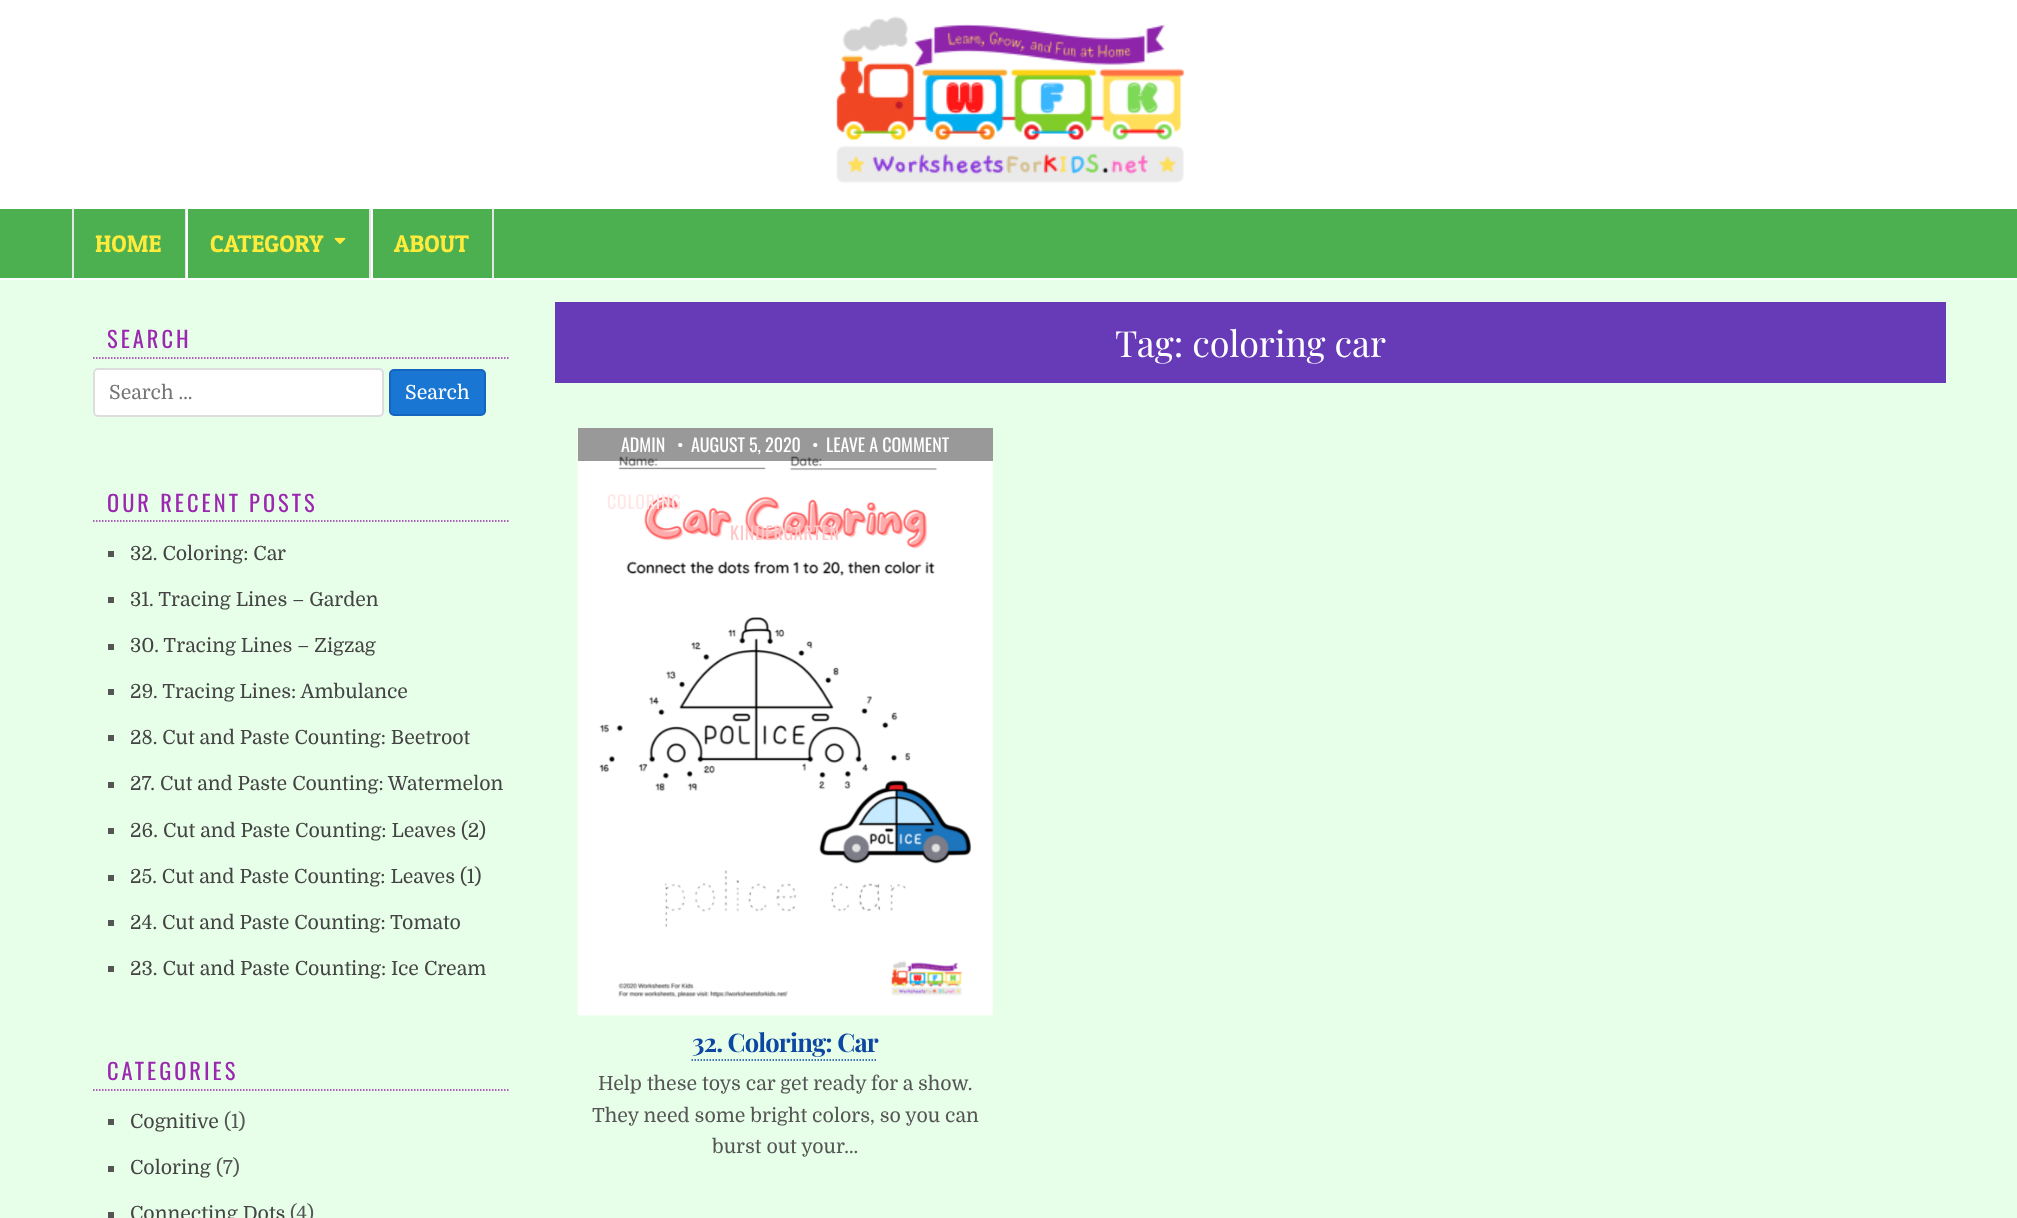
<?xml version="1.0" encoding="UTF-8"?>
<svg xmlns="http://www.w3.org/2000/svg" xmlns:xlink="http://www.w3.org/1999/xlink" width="2017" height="1218">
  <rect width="100%" height="100%" fill="#e7ffe8" />
  <rect width="2017" height="209" fill="#ffffff" />
  <image x="836" y="16" width="349" height="167" xlink:href="image1.png" />
  <rect y="209" width="2017" height="69" fill="#4caf50" />
  <rect y="278" width="2017" height="2" fill="#ffffff" />
  <rect x="185" y="209" width="1" height="69" fill="#e5e5e5" />
  <rect x="72" y="209" width="2" height="69" fill="#e5e5e5" />
  <rect x="369" y="209" width="2" height="69" fill="#e5e5e5" />
  <rect x="186" y="209" width="2" height="69" fill="#ffffff" />
  <image x="334" y="237" width="12" height="7" xlink:href="image2.png" />
  <rect x="492" y="209" width="2" height="69" fill="#e5e5e5" />
  <rect x="371" y="209" width="2" height="69" fill="#ffffff" />
  <path d="M 93 358 h 415.5" fill="none" stroke="#9c27b0" stroke-width="1.5" stroke-dasharray="1.5 1.5" />
  <rect x="94" y="369" width="289" height="47" rx="4" fill="#ffffff" stroke="#dddddd" stroke-width="2" />
  <rect x="390" y="370" width="95" height="45" rx="4" fill="#1976d2" stroke="#1565c0" stroke-width="2" />
  <path d="M 93 521 h 415.5" fill="none" stroke="#9c27b0" stroke-width="1.5" stroke-dasharray="1.5 1.5" />
  <rect x="108" y="551" width="6" height="6" fill="#555555" />
  <rect x="108" y="597" width="6" height="6" fill="#555555" />
  <rect x="108" y="644" width="6" height="6" fill="#555555" />
  <rect x="108" y="689" width="6" height="6" fill="#555555" />
  <rect x="108" y="735" width="6" height="6" fill="#555555" />
  <rect x="108" y="782" width="6" height="6" fill="#555555" />
  <rect x="108" y="828" width="6" height="6" fill="#555555" />
  <rect x="108" y="875" width="6" height="6" fill="#555555" />
  <rect x="108" y="920" width="6" height="6" fill="#555555" />
  <rect x="108" y="966" width="6" height="6" fill="#555555" />
  <path d="M 93 1090 h 415.5" fill="none" stroke="#9c27b0" stroke-width="1.5" stroke-dasharray="1.5 1.5" />
  <rect x="108" y="1119" width="6" height="6" fill="#555555" />
  <rect x="108" y="1166" width="6" height="6" fill="#555555" />
  <rect x="108" y="1212" width="6" height="6" fill="#555555" />
  <rect x="555" y="302" width="1391" height="81" fill="#673ab7" />
  <image x="577" y="428" width="416" height="588" xlink:href="image3.png" />
  <rect x="578" y="428" width="415" height="33" fill="#000000" fill-opacity="0.4" />
  <path d="M 691.5 1060 h 186" fill="none" stroke="#0d47a1" stroke-width="1.5" stroke-dasharray="1.5 1.5" />
  <text x="95" y="252" style="font-family: Patua One; font-size: 24px; fill: #ffeb3b">HOME</text>
  <text x="210" y="252" style="font-family: Patua One; font-size: 24px; fill: #ffeb3b">CATEGORY</text>
  <text x="394" y="252" style="font-family: Patua One; font-size: 24px; fill: #ffeb3b">ABOUT</text>
  <text x="107" y="348" style="font-family: Oswald; font-size: 22.5px; letter-spacing: 3px; fill: #9c27b0">SEARCH</text>
  <text x="109" y="399" style="font-family: Domine; font-size: 19.5px; fill: #757575">Search …</text>
  <text x="405" y="399" style="font-family: Domine; font-size: 19.5px; fill: #ffffff">Search</text>
  <text x="107" y="512" style="font-family: Oswald; font-size: 22.5px; letter-spacing: 3px; fill: #9c27b0">OUR RECENT POSTS</text>
  <text x="130" y="560" style="font-family: Domine; font-size: 19.5px; fill: #444444">32. Coloring: Car</text>
  <text x="130" y="606" style="font-family: Domine; font-size: 19.5px; fill: #444444">31. Tracing Lines – Garden</text>
  <text x="130" y="652" style="font-family: Domine; font-size: 19.5px; fill: #444444">30. Tracing Lines – Zigzag</text>
  <text x="130" y="698" style="font-family: Domine; font-size: 19.5px; fill: #444444">29. Tracing Lines: Ambulance</text>
  <text x="130" y="744" style="font-family: Domine; font-size: 19.5px; fill: #444444">28. Cut and Paste Counting: Beetroot</text>
  <text x="130" y="790" style="font-family: Domine; font-size: 19.5px; fill: #444444">27. Cut and Paste Counting: Watermelon</text>
  <text x="130" y="837" style="font-family: Domine; font-size: 19.5px; fill: #444444">26. Cut and Paste Counting: Leaves (2)</text>
  <text x="130" y="883" style="font-family: Domine; font-size: 19.5px; fill: #444444">25. Cut and Paste Counting: Leaves (1)</text>
  <text x="130" y="929" style="font-family: Domine; font-size: 19.5px; fill: #444444">24. Cut and Paste Counting: Tomato</text>
  <text x="130" y="975" style="font-family: Domine; font-size: 19.5px; fill: #444444">23. Cut and Paste Counting: Ice Cream</text>
  <text x="107" y="1080" style="font-family: Oswald; font-size: 22.5px; letter-spacing: 3px; fill: #9c27b0">CATEGORIES</text>
  <text x="130" y="1128" style="font-family: Domine; font-size: 19.5px; fill: #444444">Cognitive</text>
  <text x="224" y="1128" style="font-family: Domine; font-size: 19.5px; fill: #555555">(1)</text>
  <text x="130" y="1174" style="font-family: Domine; font-size: 19.5px; fill: #444444">Coloring</text>
  <text x="216" y="1174" style="font-family: Domine; font-size: 19.5px; fill: #555555">(7)</text>
  <text x="130" y="1220" style="font-family: Domine; font-size: 19.5px; fill: #444444">Connecting Dots</text>
  <text x="290" y="1220" style="font-family: Domine; font-size: 19.5px; fill: #555555">(4)</text>
  <text x="1115" y="357" style="font-family: Playfair Display; font-size: 36px; fill: #ffffff">Tag: coloring car</text>
  <text x="621" y="452" style="font-family: Oswald; font-size: 18px; fill: #ffffff">ADMIN</text>
  <text x="677" y="452" style="font-family: Oswald; font-size: 18px; fill: #ffffff">•</text>
  <text x="691" y="452" style="font-family: Oswald; font-size: 18px; fill: #ffffff">AUGUST 5, 2020</text>
  <text x="812" y="452" style="font-family: Oswald; font-size: 18px; fill: #ffffff">•</text>
  <text x="826" y="452" style="font-family: Oswald; font-size: 18px; fill: #ffffff">LEAVE A COMMENT</text>
  <text x="607" y="509" style="font-family: Oswald; font-size: 18px; letter-spacing: 0.75px; fill: #ffe7e7">COLORING</text>
  <text x="730" y="540" style="font-family: Oswald; font-size: 18px; letter-spacing: 0.75px; fill: #ffc7c7">KINDERGARTEN</text>
  <text x="692" y="1052" style="font-family: Playfair Display; font-size: 25.5px; font-weight: bold; letter-spacing: -0.75px; fill: #0d47a1">32. Coloring: Car</text>
  <text x="598" y="1090" style="font-family: Domine; font-size: 19.5px; fill: #555555">Help these toys car get ready for a show.</text>
  <text x="592" y="1122" style="font-family: Domine; font-size: 19.5px; fill: #555555">They need some bright colors, so you can</text>
  <text x="712" y="1153" style="font-family: Domine; font-size: 19.5px; fill: #555555">burst out your…</text>
</svg>
